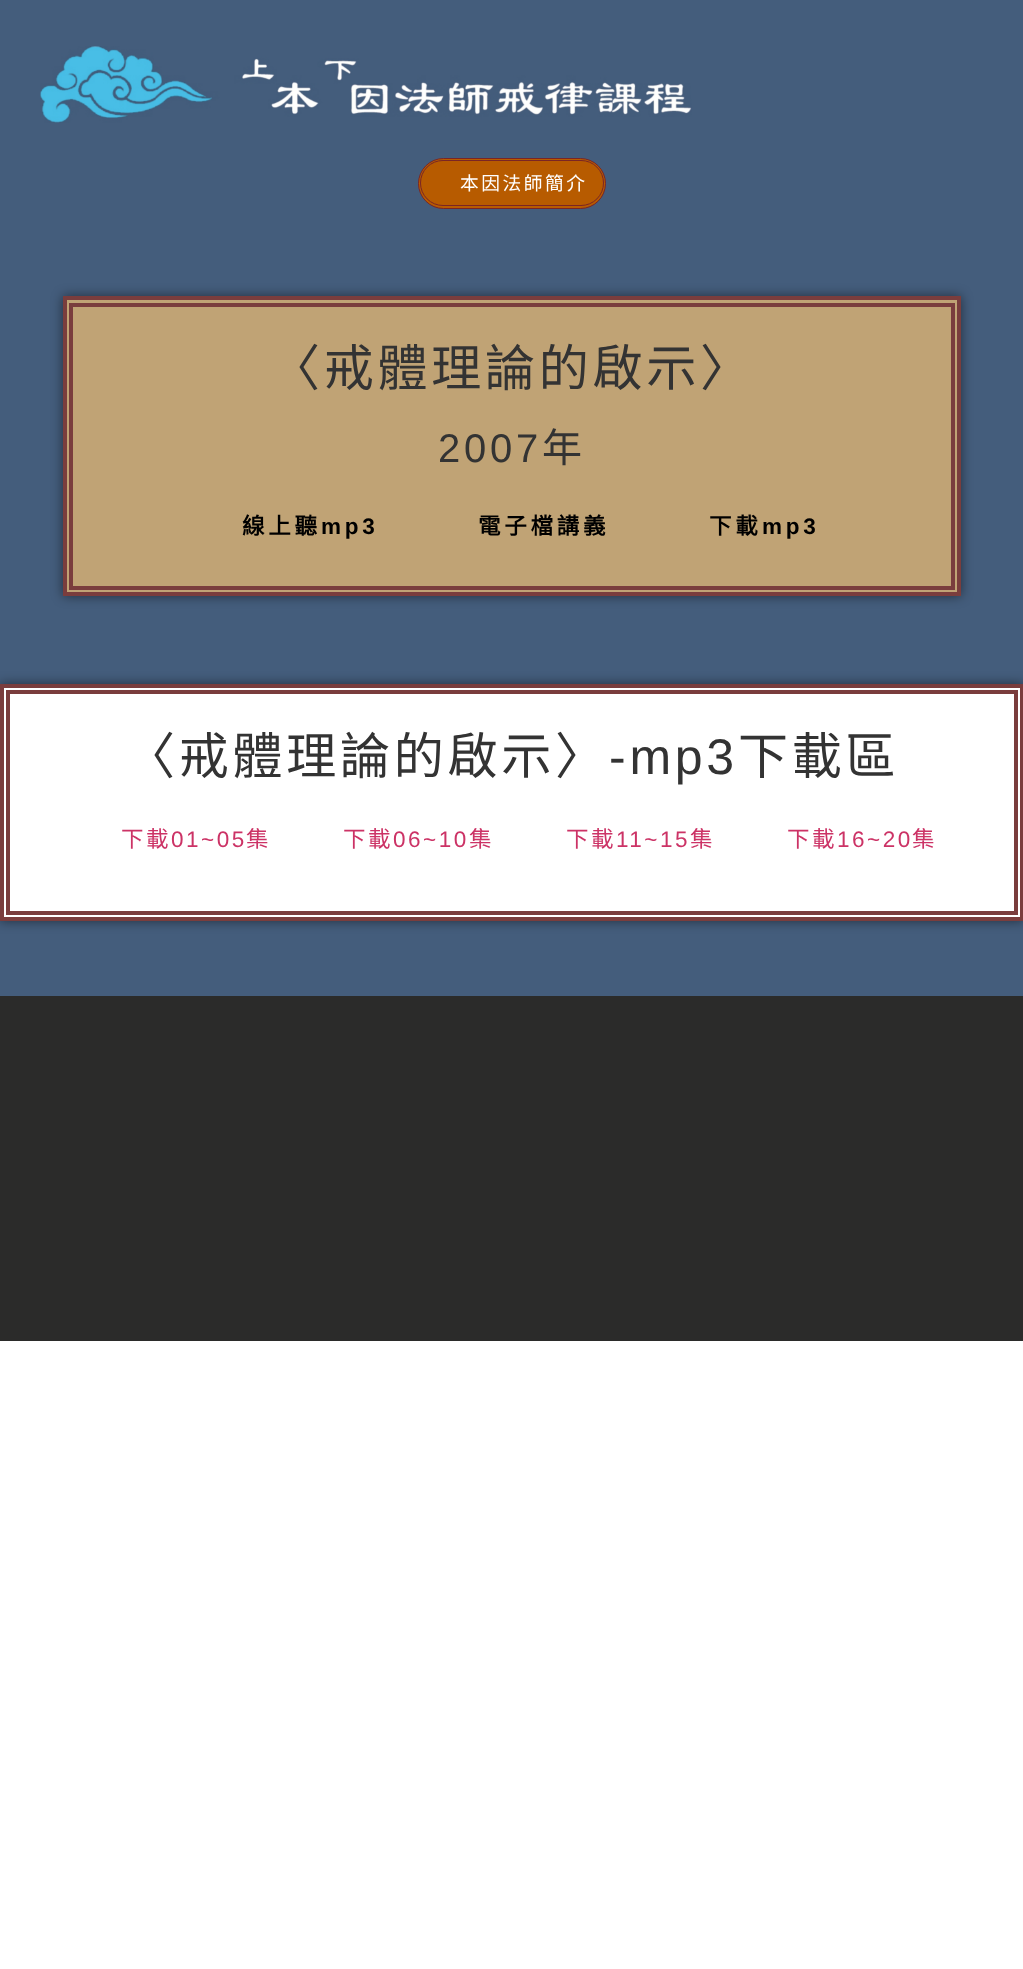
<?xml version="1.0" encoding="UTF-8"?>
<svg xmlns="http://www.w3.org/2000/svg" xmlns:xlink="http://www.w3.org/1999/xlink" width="1023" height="1969">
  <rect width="100%" height="100%" fill="#ffffff" />
  <rect width="1023" height="684" fill="#445d7c" />
  <image x="40" y="46" width="652" height="77" xlink:href="image1.png" />
  <rect x="418.5" y="158.5" width="187" height="50" rx="25" fill="#b75b00" stroke="#7a2525" />
  <rect x="420.5" y="160.5" width="183" height="45" rx="22.5" fill="none" stroke="#7a2525" />
  <rect x="63" y="296" width="898" height="300" fill="#000000" fill-opacity="0.5" filter="blur(6px)" />
  <rect x="65" y="298" width="894" height="296" fill="#c0a375" stroke="#7a3d3d" stroke-width="4" />
  <rect x="71" y="305" width="882" height="283" fill="none" stroke="#7a3d3d" stroke-width="4" />
  <rect y="921" width="1023" height="75" fill="#445d7c" />
  <rect y="684" width="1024" height="237" fill="#000000" fill-opacity="0.5" filter="blur(6px)" />
  <rect x="2" y="686" width="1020" height="233" fill="#ffffff" stroke="#7a3d3d" stroke-width="4" />
  <rect x="8" y="692" width="1008" height="221" fill="none" stroke="#7a3d3d" stroke-width="4" />
  <rect y="996" width="1023" height="345" fill="#2b2b2a" />
  <text x="460" y="190" style="font-family: Noto Sans CJK TC; font-size: 18.75px; letter-spacing: 2.5px; fill: #ffffff">本因法師簡介</text>
  <text x="270" y="386" style="font-family: Noto Sans CJK TC; font-size: 50px; letter-spacing: 3.75px; fill: #333333">〈戒體理論的啟示〉</text>
  <text x="438" y="462" style="font-family: Liberation Sans; font-size: 40px; letter-spacing: 3.75px; fill: #333333">2007</text>
  <text x="542" y="462" style="font-family: Noto Sans CJK TC; font-size: 40px; letter-spacing: 3.75px; fill: #333333">年</text>
  <text x="242" y="534" style="font-family: Noto Sans CJK TC; font-size: 22.5px; font-weight: bold; letter-spacing: 3.75px; fill: #000000">線上聽</text>
  <text x="321" y="534" style="font-family: Liberation Sans; font-size: 22.5px; font-weight: bold; letter-spacing: 3.75px; fill: #000000">mp3</text>
  <text x="478" y="534" style="font-family: Noto Sans CJK TC; font-size: 22.5px; font-weight: bold; letter-spacing: 3.75px; fill: #000000">電子檔講義</text>
  <text x="709" y="534" style="font-family: Noto Sans CJK TC; font-size: 22.5px; font-weight: bold; letter-spacing: 3.75px; fill: #000000">下載</text>
  <text x="762" y="534" style="font-family: Liberation Sans; font-size: 22.5px; font-weight: bold; letter-spacing: 3.75px; fill: #000000">mp3</text>
  <text x="125" y="774" style="font-family: Noto Sans CJK TC; font-size: 50px; letter-spacing: 3.75px; fill: #333333">〈戒體理論的啟示〉</text>
  <text x="609" y="774" style="font-family: Liberation Sans; font-size: 50px; letter-spacing: 3.75px; fill: #333333">-mp3</text>
  <text x="738" y="774" style="font-family: Noto Sans CJK TC; font-size: 50px; letter-spacing: 3.75px; fill: #333333">下載區</text>
  <text x="121" y="847" style="font-family: Noto Sans CJK TC; font-size: 22.5px; letter-spacing: 2.5px; fill: #cc3366">下載</text>
  <text x="171" y="847" style="font-family: Liberation Sans; font-size: 22.5px; letter-spacing: 2.5px; fill: #cc3366">01~05</text>
  <text x="246" y="847" style="font-family: Noto Sans CJK TC; font-size: 22.5px; letter-spacing: 2.5px; fill: #cc3366">集</text>
  <text x="343" y="847" style="font-family: Noto Sans CJK TC; font-size: 22.5px; letter-spacing: 2.5px; fill: #cc3366">下載</text>
  <text x="393" y="847" style="font-family: Liberation Sans; font-size: 22.5px; letter-spacing: 2.5px; fill: #cc3366">06~10</text>
  <text x="469" y="847" style="font-family: Noto Sans CJK TC; font-size: 22.5px; letter-spacing: 2.5px; fill: #cc3366">集</text>
  <text x="566" y="847" style="font-family: Noto Sans CJK TC; font-size: 22.5px; letter-spacing: 2.5px; fill: #cc3366">下載</text>
  <text x="616" y="847" style="font-family: Liberation Sans; font-size: 22.5px; letter-spacing: 2.5px; fill: #cc3366">11~15</text>
  <text x="690" y="847" style="font-family: Noto Sans CJK TC; font-size: 22.5px; letter-spacing: 2.5px; fill: #cc3366">集</text>
  <text x="787" y="847" style="font-family: Noto Sans CJK TC; font-size: 22.5px; letter-spacing: 2.5px; fill: #cc3366">下載</text>
  <text x="837" y="847" style="font-family: Liberation Sans; font-size: 22.5px; letter-spacing: 2.5px; fill: #cc3366">16~20</text>
  <text x="912" y="847" style="font-family: Noto Sans CJK TC; font-size: 22.5px; letter-spacing: 2.5px; fill: #cc3366">集</text>
</svg>
